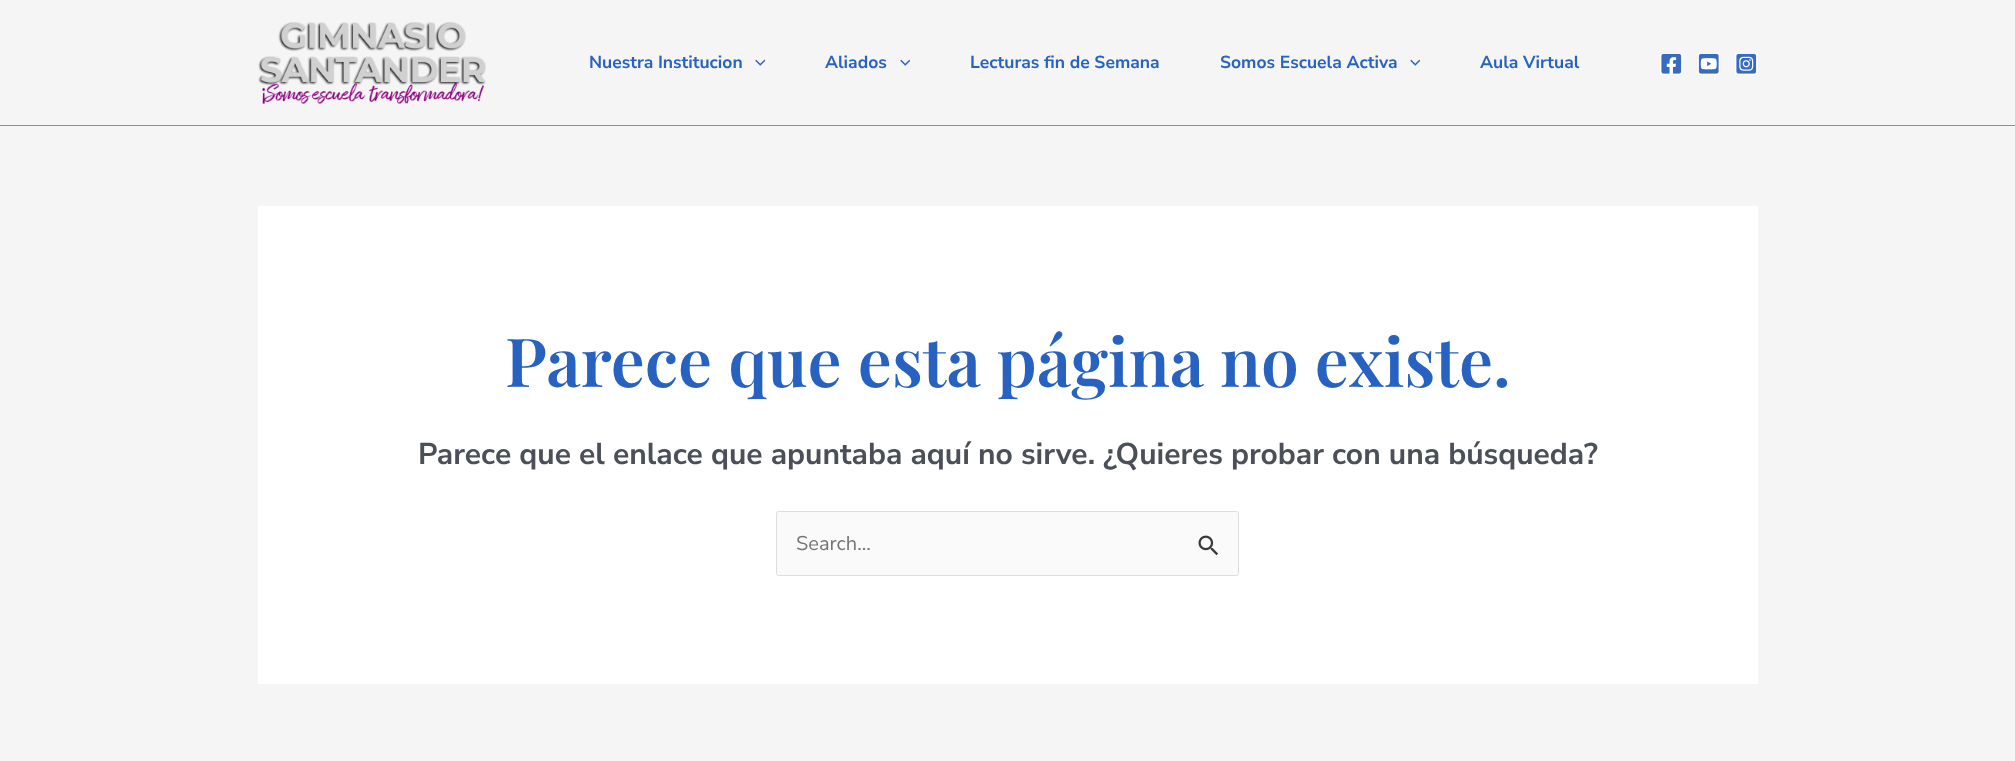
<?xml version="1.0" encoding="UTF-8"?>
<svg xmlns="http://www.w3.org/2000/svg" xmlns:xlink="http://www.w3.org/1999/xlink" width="2015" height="761">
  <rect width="100%" height="100%" fill="#f5f5f5" />
  <rect y="125" width="2015" height="1" fill="#789b7c" />
  <image x="258" y="22" width="228" height="82" xlink:href="image1.png" />
  <image x="755" y="59" width="10" height="7" xlink:href="image2.png" />
  <image x="900" y="59" width="10" height="7" xlink:href="image2.png" />
  <image x="1410" y="59" width="10" height="7" xlink:href="image2.png" />
  <rect x="1660" y="53" width="23" height="22" fill="#ffffff" />
  <image x="1661" y="53" width="21" height="21" xlink:href="image3.png" />
  <rect x="1698" y="53" width="22" height="22" fill="#ffffff" />
  <image x="1698" y="53" width="21" height="21" xlink:href="image4.png" />
  <rect x="1735" y="53" width="23" height="22" fill="#ffffff" />
  <image x="1736" y="53" width="21" height="21" xlink:href="image5.png" />
  <rect x="258" y="206" width="1500" height="478" fill="#ffffff" />
  <rect x="776.5" y="511.5" width="462" height="64" rx="2" fill="#fafafa" stroke="#dddddd" />
  <image x="1198" y="535" width="20" height="21" xlink:href="image6.png" />
  <text x="589" y="68" style="font-family: Nunito Sans; font-size: 17.5px; font-weight: bold; fill: #2762c0">Nuestra Institucion</text>
  <text x="825" y="68" style="font-family: Nunito Sans; font-size: 17.5px; font-weight: bold; fill: #2762c0">Aliados</text>
  <text x="970" y="68" style="font-family: Nunito Sans; font-size: 17.5px; font-weight: bold; fill: #2762c0">Lecturas fin de Semana</text>
  <text x="1220" y="68" style="font-family: Nunito Sans; font-size: 17.5px; font-weight: bold; fill: #2762c0">Somos Escuela Activa</text>
  <text x="1480" y="68" style="font-family: Nunito Sans; font-size: 17.5px; font-weight: bold; fill: #2762c0">Aula Virtual</text>
  <text x="505" y="387" style="font-family: Playfair Display; font-size: 67.5px; font-weight: 600; fill: #2762c0">Parece que esta página no existe.</text>
  <text x="418" y="464" style="font-family: Nunito Sans; font-size: 30px; font-weight: bold; fill: #4b4f58">Parece que el enlace que apuntaba aquí no sirve. ¿Quieres probar con una búsqueda?</text>
  <text x="796" y="550" style="font-family: Nunito Sans; font-size: 20px; fill: #757575">Search...</text>
</svg>
